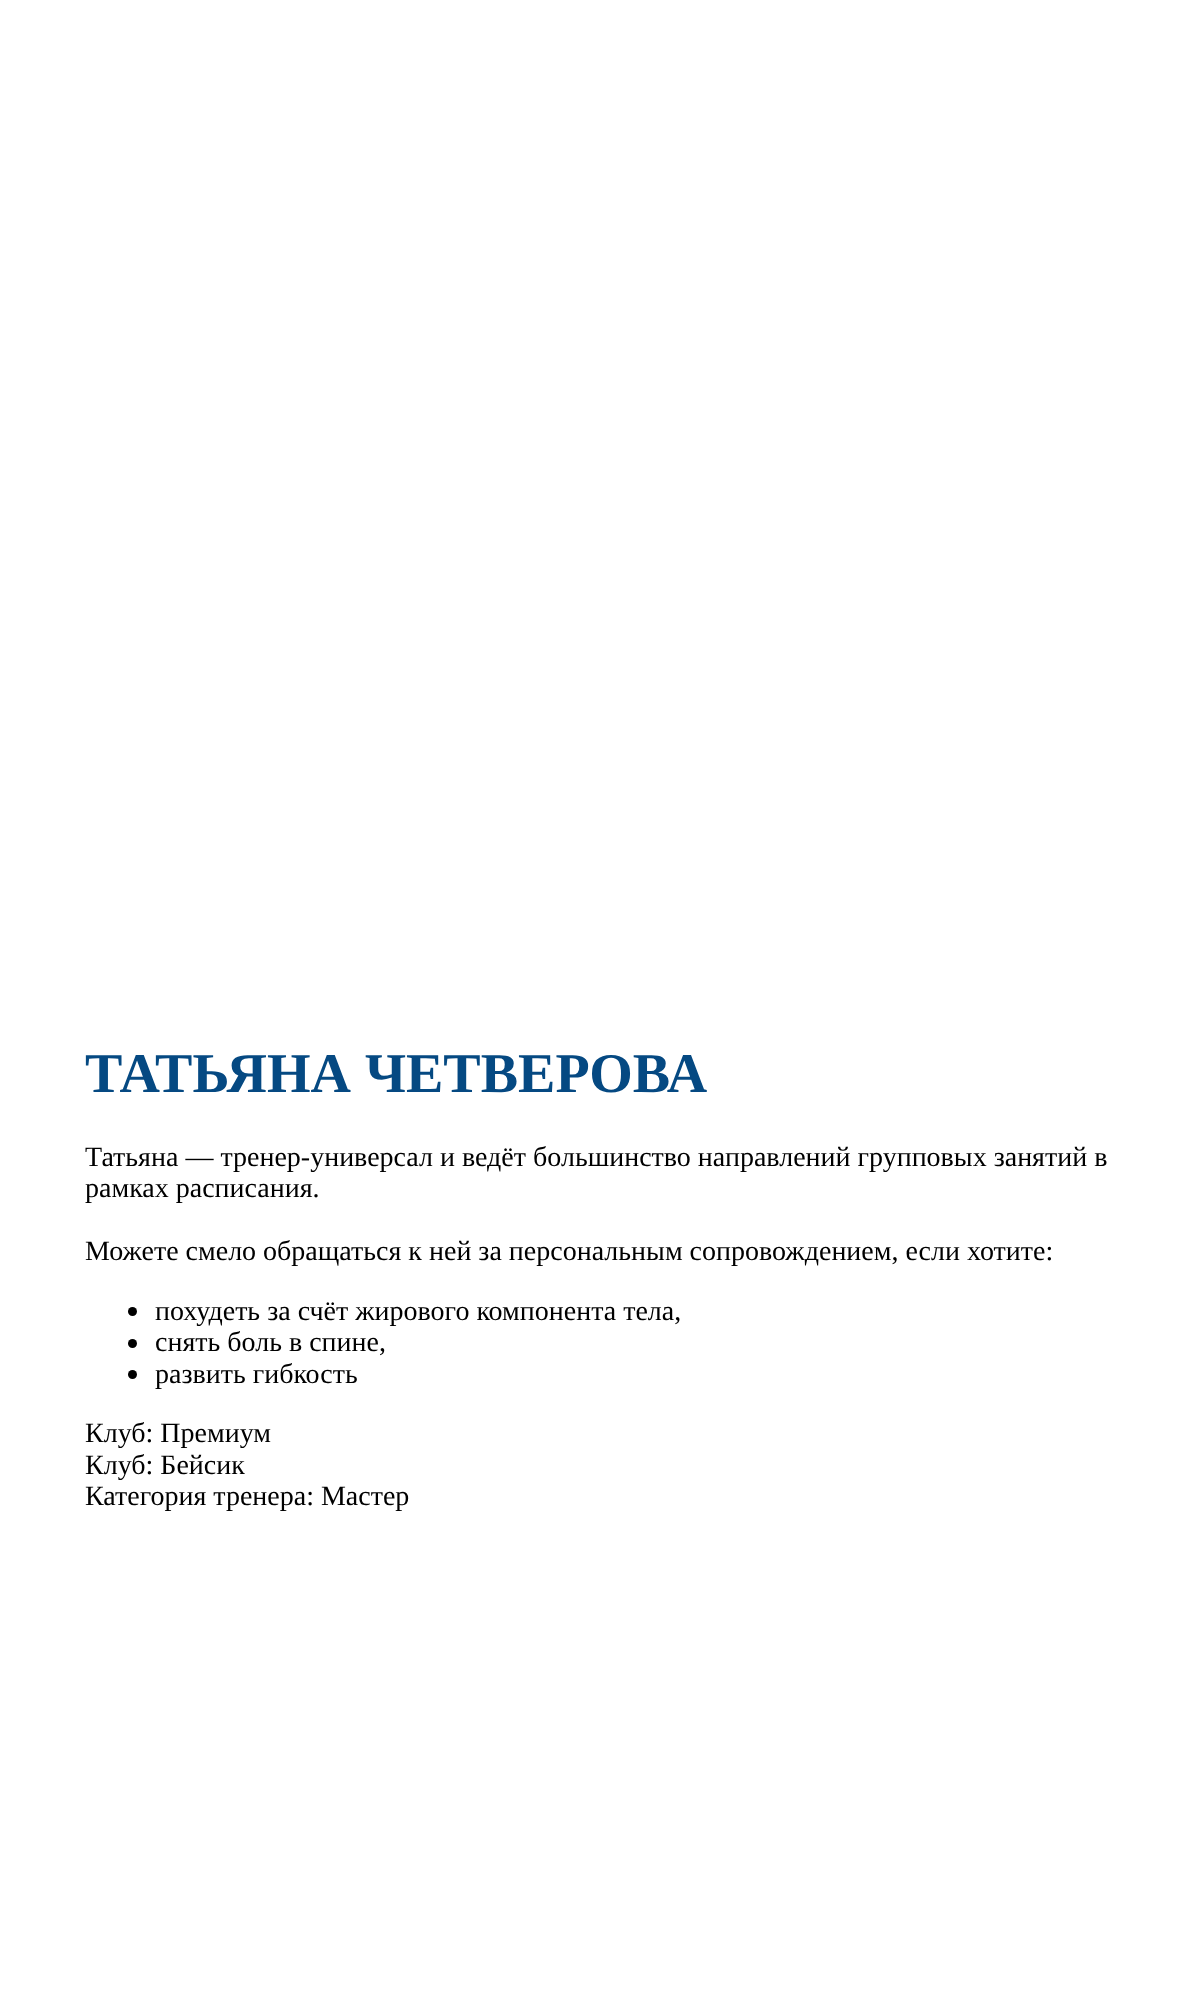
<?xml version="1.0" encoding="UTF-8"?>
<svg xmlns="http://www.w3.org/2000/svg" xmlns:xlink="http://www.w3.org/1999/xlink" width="1184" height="2014">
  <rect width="100%" height="100%" fill="#ffffff" />
  <circle cx="132.5" cy="1311.5" r="4.5" fill="#000000" />
  <circle cx="132.5" cy="1343.5" r="4.5" fill="#000000" />
  <circle cx="132.5" cy="1374.5" r="4.5" fill="#000000" />
  <text x="85" y="1092" style="font-family: Liberation Serif; font-size: 56px; font-weight: bold; fill: #054982">ТАТЬЯНА ЧЕТВЕРОВА</text>
  <text x="85" y="1166" style="font-family: Liberation Serif; font-size: 28px; fill: #000000">Татьяна — тренер-универсал и ведёт большинство направлений групповых занятий в</text>
  <text x="85" y="1197" style="font-family: Liberation Serif; font-size: 28px; fill: #000000">рамках расписания.</text>
  <text x="85" y="1260" style="font-family: Liberation Serif; font-size: 28px; fill: #000000">Можете смело обращаться к ней за персональным сопровождением, если хотите:</text>
  <text x="155" y="1320" style="font-family: Liberation Serif; font-size: 28px; fill: #000000">похудеть за счёт жирового компонента тела,</text>
  <text x="155" y="1351" style="font-family: Liberation Serif; font-size: 28px; fill: #000000">снять боль в спине,</text>
  <text x="155" y="1383" style="font-family: Liberation Serif; font-size: 28px; fill: #000000">развить гибкость</text>
  <text x="85" y="1442" style="font-family: Liberation Serif; font-size: 28px; fill: #000000">Клуб: Премиум</text>
  <text x="85" y="1474" style="font-family: Liberation Serif; font-size: 28px; fill: #000000">Клуб: Бейсик</text>
  <text x="85" y="1505" style="font-family: Liberation Serif; font-size: 28px; fill: #000000">Категория тренера: Мастер</text>
</svg>
